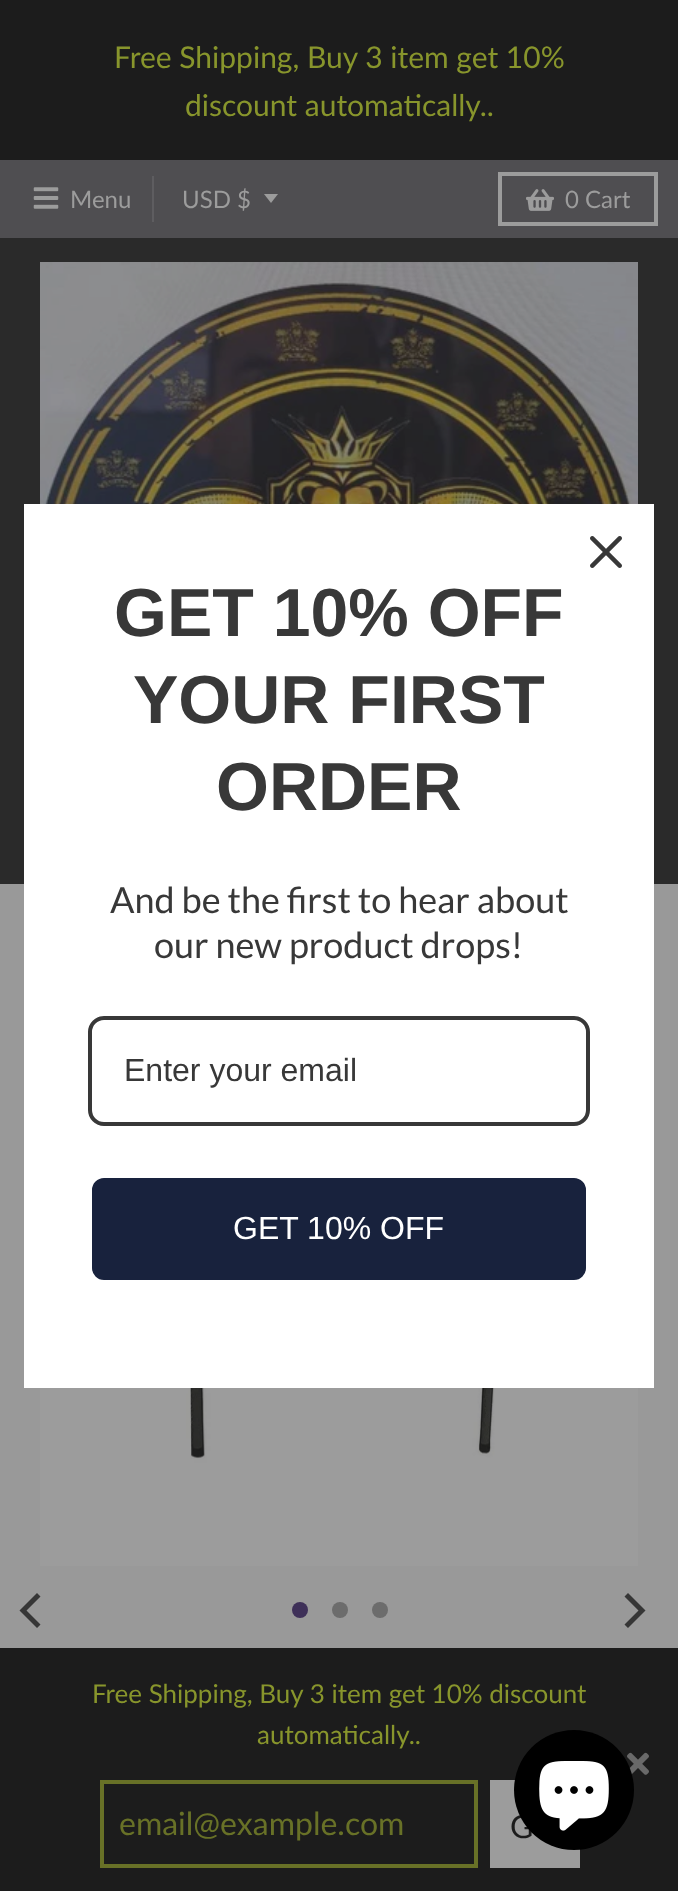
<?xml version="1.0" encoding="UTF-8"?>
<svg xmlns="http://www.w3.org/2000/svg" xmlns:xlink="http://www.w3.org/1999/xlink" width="678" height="1891">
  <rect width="100%" height="100%" fill="#999999" />
  <rect width="678" height="160" fill="#1c1c1c" />
  <rect y="1648" width="678" height="243" fill="#1c1c1c" />
  <image x="627" y="1752" width="22" height="23" xlink:href="image1.png" />
  <rect x="102" y="1782" width="374" height="84" fill="none" stroke="#687127" stroke-width="4" />
  <rect x="490" y="1780" width="90" height="88" fill="#9c9c9c" />
  <rect y="160" width="678" height="78" fill="#4f4e51" />
  <image x="33" y="187" width="26" height="22" xlink:href="image2.png" />
  <rect x="152" y="176" width="2" height="46" fill="#5e5d60" />
  <path d="M 264 194 l 7 9 l 7 -9 z" fill="#9c9c9c" />
  <rect x="500" y="174" width="156" height="50" fill="none" stroke="#9c9c9c" stroke-width="4" />
  <image x="526" y="189" width="28" height="22" xlink:href="image3.png" />
  <rect y="238" width="678" height="646" fill="#2a2a2a" />
  <image x="40" y="262" width="598" height="242" xlink:href="image4.png" />
  <image x="40" y="1388" width="598" height="178" xlink:href="image5.png" />
  <path d="M 19.5 1610.5 l 17.5 17.5 l 3.5 -3.5 l -14 -14 l 14 -14 l -3.5 -3.5 z" fill="#363636" />
  <circle cx="300" cy="1610" r="8" fill="#3e3058" />
  <circle cx="340" cy="1610" r="8" fill="#6c6c6c" />
  <circle cx="380" cy="1610" r="8" fill="#6c6c6c" />
  <path d="M 645.5 1610.5 l -17.5 -17.5 l -3.5 3.5 l 14 14 l -14 14 l 3.5 3.5 z" fill="#363636" />
  <rect x="24" y="504" width="630" height="884" fill="#ffffff" />
  <image x="590" y="536" width="32" height="32" xlink:href="image6.png" />
  <rect x="90" y="1018" width="498" height="106" rx="14" fill="none" stroke="#383838" stroke-width="4" />
  <rect x="90" y="1176" width="498" height="106" rx="14" fill="#18223d" stroke="#ffffff" stroke-width="4" />
  <text x="114" y="68" style="font-family: Lato; font-size: 30px; fill: #88952c">Free Shipping, Buy 3 item get 10%</text>
  <text x="185" y="116" style="font-family: Lato; font-size: 30px; fill: #88952c">discount automatically..</text>
  <text x="92" y="1703" style="font-family: Lato; font-size: 26px; fill: #88952c">Free Shipping, Buy 3 item get 10% discount</text>
  <text x="257" y="1744" style="font-family: Lato; font-size: 26px; fill: #88952c">automatically..</text>
  <text x="119" y="1835" style="font-family: Lato; font-size: 32px; fill: #687127">email@example.com</text>
  <text x="510" y="1838" style="font-family: Lato; font-size: 32px; fill: #1c1c1c">G</text>
  <text x="70" y="208" style="font-family: Lato; font-size: 24px; fill: #9c9c9c">Menu</text>
  <text x="182" y="208" style="font-family: Lato; font-size: 24px; fill: #9c9c9c">USD $</text>
  <text x="565" y="208" style="font-family: Lato; font-size: 24px; fill: #9c9c9c">0 Cart</text>
  <text x="114" y="636" style="font-family: Liberation Sans; font-size: 68px; font-weight: bold; fill: #383838">GET 10% OFF</text>
  <text x="133" y="723" style="font-family: Liberation Sans; font-size: 68px; font-weight: bold; fill: #383838">YOUR FIRST</text>
  <text x="216" y="810" style="font-family: Liberation Sans; font-size: 68px; font-weight: bold; fill: #383838">ORDER</text>
  <text x="110" y="913" style="font-family: 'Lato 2'; font-size: 36px; fill: #383838">And be the first to hear about</text>
  <text x="154" y="958" style="font-family: 'Lato 2'; font-size: 36px; fill: #383838">our new product drops!</text>
  <text x="124" y="1081" style="font-family: Liberation Sans; font-size: 32px; fill: #383838">Enter your email</text>
  <text x="233" y="1239" style="font-family: Liberation Sans; font-size: 32px; fill: #ffffff">GET 10% OFF</text>
  <circle cx="574" cy="1790" r="60" fill="#000000" />
  <image x="539" y="1761" width="70" height="70" xlink:href="image7.png" />
</svg>
